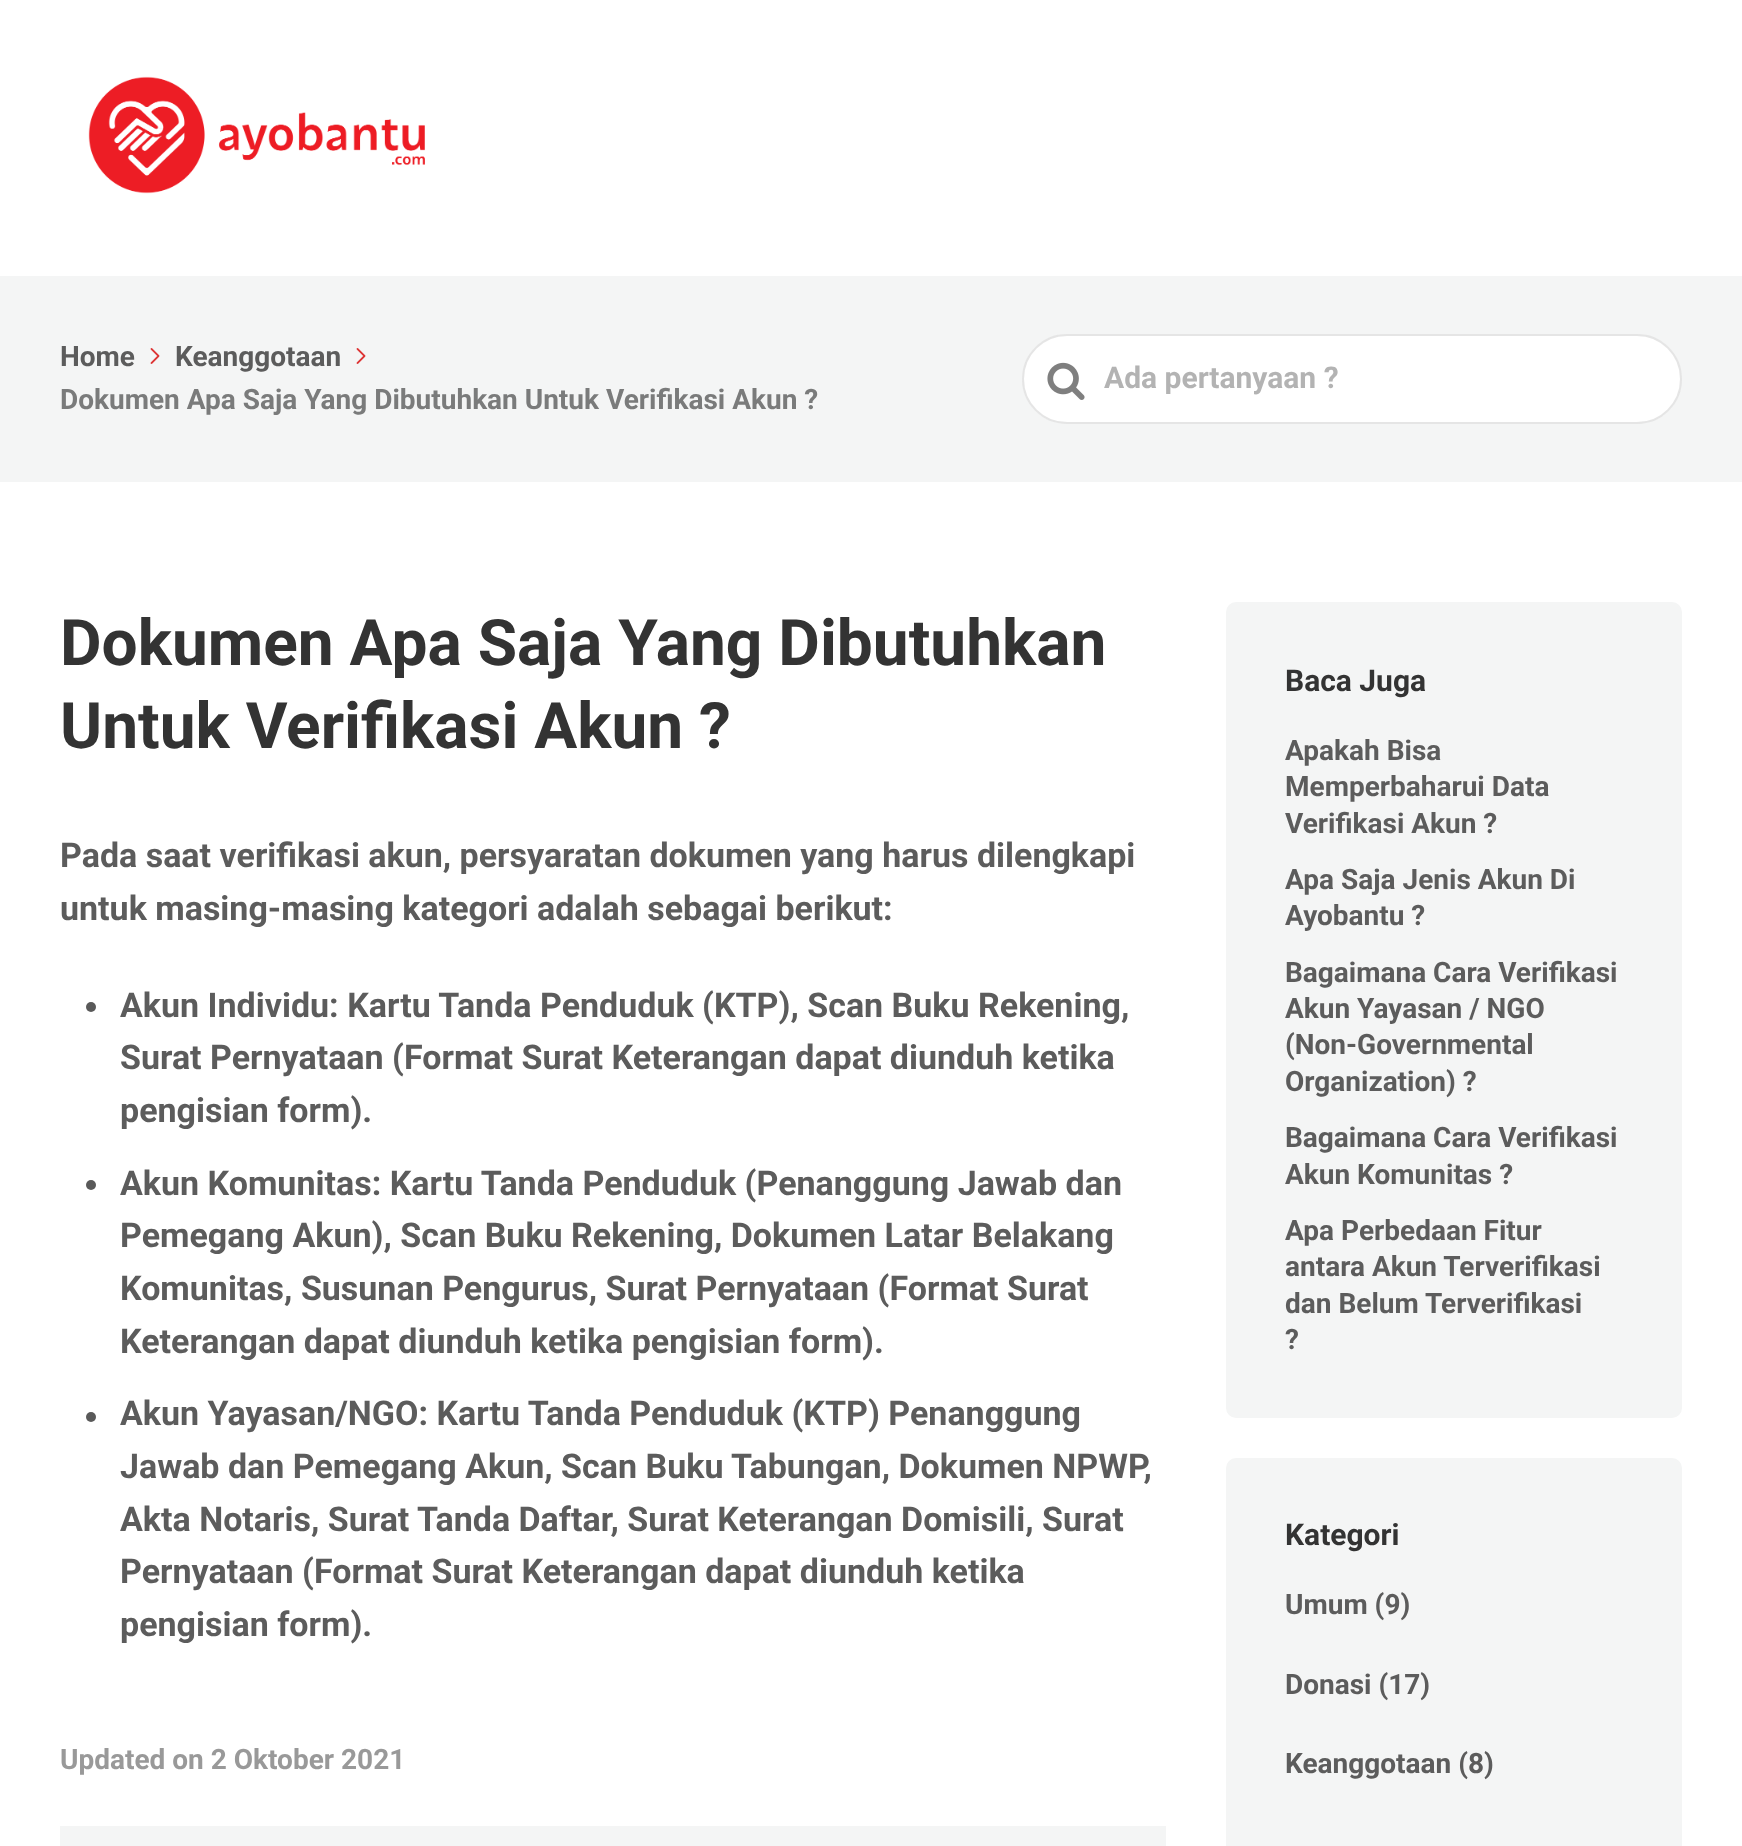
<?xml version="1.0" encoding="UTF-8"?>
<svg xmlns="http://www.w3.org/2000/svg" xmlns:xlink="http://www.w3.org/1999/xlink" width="1742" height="1846">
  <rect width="100%" height="100%" fill="#ffffff" />
  <image x="88" y="76" width="337" height="118" xlink:href="image1.png" />
  <rect y="276" width="1742" height="206" fill="#f4f5f5" />
  <image x="150" y="348" width="10" height="16" xlink:href="image2.png" />
  <image x="356" y="348" width="10" height="16" xlink:href="image2.png" />
  <rect x="1022" y="334" width="660" height="90" rx="45" fill="#ffffff" />
  <rect x="1023" y="335" width="658" height="88" rx="44" fill="none" stroke="#cccccc" stroke-opacity="0.5" stroke-width="2" />
  <image x="1047" y="362" width="38" height="38" xlink:href="image3.png" />
  <circle cx="91" cy="1007" r="5" fill="#595959" />
  <circle cx="91" cy="1185" r="5" fill="#595959" />
  <circle cx="91" cy="1417" r="5" fill="#595959" />
  <rect x="60" y="1826" width="1106" height="20" fill="#f4f5f5" />
  <rect x="1226" y="602" width="456" height="816" rx="10" fill="#f4f5f5" />
  <rect x="1226" y="1458" width="456" height="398" rx="10" fill="#f4f5f5" />
  <text x="60" y="366" style="font-family: Roboto; font-size: 28px; font-weight: bold; fill: #5c5c5c">Home</text>
  <text x="175" y="366" style="font-family: Roboto; font-size: 28px; font-weight: bold; fill: #5c5c5c">Keanggotaan</text>
  <text x="60" y="409" style="font-family: Roboto; font-size: 28px; font-weight: bold; fill: #7a7b7b">Dokumen Apa Saja Yang Dibutuhkan Untuk Verifikasi Akun ?</text>
  <text x="1104" y="388" style="font-family: Roboto; font-size: 30px; font-weight: bold; fill: #b3b3b3">Ada pertanyaan ?</text>
  <text x="60" y="665" style="font-family: Roboto; font-size: 64px; font-weight: bold; fill: #333333">Dokumen Apa Saja Yang Dibutuhkan</text>
  <text x="60" y="748" style="font-family: Roboto; font-size: 64px; font-weight: bold; fill: #333333">Untuk Verifikasi Akun ?</text>
  <text x="60" y="867" style="font-family: Roboto; font-size: 34px; font-weight: bold; fill: #5c5c5c">Pada saat verifikasi akun, persyaratan dokumen yang harus dilengkapi</text>
  <text x="60" y="920" style="font-family: Roboto; font-size: 34px; font-weight: bold; fill: #5c5c5c">untuk masing-masing kategori adalah sebagai berikut:</text>
  <text x="120" y="1017" style="font-family: Roboto; font-size: 34px; font-weight: bold; fill: #5c5c5c">Akun Individu: Kartu Tanda Penduduk (KTP), Scan Buku Rekening,</text>
  <text x="120" y="1069" style="font-family: Roboto; font-size: 34px; font-weight: bold; fill: #5c5c5c">Surat Pernyataan (Format Surat Keterangan dapat diunduh ketika</text>
  <text x="120" y="1122" style="font-family: Roboto; font-size: 34px; font-weight: bold; fill: #5c5c5c">pengisian form).</text>
  <text x="120" y="1195" style="font-family: Roboto; font-size: 34px; font-weight: bold; fill: #5c5c5c">Akun Komunitas: Kartu Tanda Penduduk (Penanggung Jawab dan</text>
  <text x="120" y="1247" style="font-family: Roboto; font-size: 34px; font-weight: bold; fill: #5c5c5c">Pemegang Akun), Scan Buku Rekening, Dokumen Latar Belakang</text>
  <text x="120" y="1300" style="font-family: Roboto; font-size: 34px; font-weight: bold; fill: #5c5c5c">Komunitas, Susunan Pengurus, Surat Pernyataan (Format Surat</text>
  <text x="120" y="1353" style="font-family: Roboto; font-size: 34px; font-weight: bold; fill: #5c5c5c">Keterangan dapat diunduh ketika pengisian form).</text>
  <text x="120" y="1425" style="font-family: Roboto; font-size: 34px; font-weight: bold; fill: #5c5c5c">Akun Yayasan/NGO: Kartu Tanda Penduduk (KTP) Penanggung</text>
  <text x="120" y="1478" style="font-family: Roboto; font-size: 34px; font-weight: bold; fill: #5c5c5c">Jawab dan Pemegang Akun, Scan Buku Tabungan, Dokumen NPWP,</text>
  <text x="120" y="1531" style="font-family: Roboto; font-size: 34px; font-weight: bold; fill: #5c5c5c">Akta Notaris, Surat Tanda Daftar, Surat Keterangan Domisili, Surat</text>
  <text x="120" y="1583" style="font-family: Roboto; font-size: 34px; font-weight: bold; fill: #5c5c5c">Pernyataan (Format Surat Keterangan dapat diunduh ketika</text>
  <text x="120" y="1636" style="font-family: Roboto; font-size: 34px; font-weight: bold; fill: #5c5c5c">pengisian form).</text>
  <text x="60" y="1769" style="font-family: Roboto; font-size: 28px; font-weight: bold; fill: #999999">Updated on 2 Oktober 2021</text>
  <text x="1285" y="691" style="font-family: Roboto; font-size: 30px; font-weight: bold; fill: #333333">Baca Juga</text>
  <text x="1285" y="760" style="font-family: Roboto; font-size: 28px; font-weight: bold; fill: #5c5c5c">Apakah Bisa</text>
  <text x="1285" y="796" style="font-family: Roboto; font-size: 28px; font-weight: bold; fill: #5c5c5c">Memperbaharui Data</text>
  <text x="1285" y="833" style="font-family: Roboto; font-size: 28px; font-weight: bold; fill: #5c5c5c">Verifikasi Akun ?</text>
  <text x="1285" y="889" style="font-family: Roboto; font-size: 28px; font-weight: bold; fill: #5c5c5c">Apa Saja Jenis Akun Di</text>
  <text x="1285" y="925" style="font-family: Roboto; font-size: 28px; font-weight: bold; fill: #5c5c5c">Ayobantu ?</text>
  <text x="1285" y="982" style="font-family: Roboto; font-size: 28px; font-weight: bold; fill: #5c5c5c">Bagaimana Cara Verifikasi</text>
  <text x="1285" y="1018" style="font-family: Roboto; font-size: 28px; font-weight: bold; fill: #5c5c5c">Akun Yayasan / NGO</text>
  <text x="1285" y="1054" style="font-family: Roboto; font-size: 28px; font-weight: bold; fill: #5c5c5c">(Non-Governmental</text>
  <text x="1285" y="1091" style="font-family: Roboto; font-size: 28px; font-weight: bold; fill: #5c5c5c">Organization) ?</text>
  <text x="1285" y="1147" style="font-family: Roboto; font-size: 28px; font-weight: bold; fill: #5c5c5c">Bagaimana Cara Verifikasi</text>
  <text x="1285" y="1184" style="font-family: Roboto; font-size: 28px; font-weight: bold; fill: #5c5c5c">Akun Komunitas ?</text>
  <text x="1285" y="1240" style="font-family: Roboto; font-size: 28px; font-weight: bold; fill: #5c5c5c">Apa Perbedaan Fitur</text>
  <text x="1285" y="1276" style="font-family: Roboto; font-size: 28px; font-weight: bold; fill: #5c5c5c">antara Akun Terverifikasi</text>
  <text x="1285" y="1313" style="font-family: Roboto; font-size: 28px; font-weight: bold; fill: #5c5c5c">dan Belum Terverifikasi</text>
  <text x="1285" y="1349" style="font-family: Roboto; font-size: 28px; font-weight: bold; fill: #5c5c5c">?</text>
  <text x="1285" y="1545" style="font-family: Roboto; font-size: 30px; font-weight: bold; fill: #333333">Kategori</text>
  <text x="1285" y="1614" style="font-family: Roboto; font-size: 28px; font-weight: bold; fill: #5c5c5c">Umum (9)</text>
  <text x="1285" y="1694" style="font-family: Roboto; font-size: 28px; font-weight: bold; fill: #5c5c5c">Donasi (17)</text>
  <text x="1285" y="1773" style="font-family: Roboto; font-size: 28px; font-weight: bold; fill: #5c5c5c">Keanggotaan (8)</text>
</svg>
